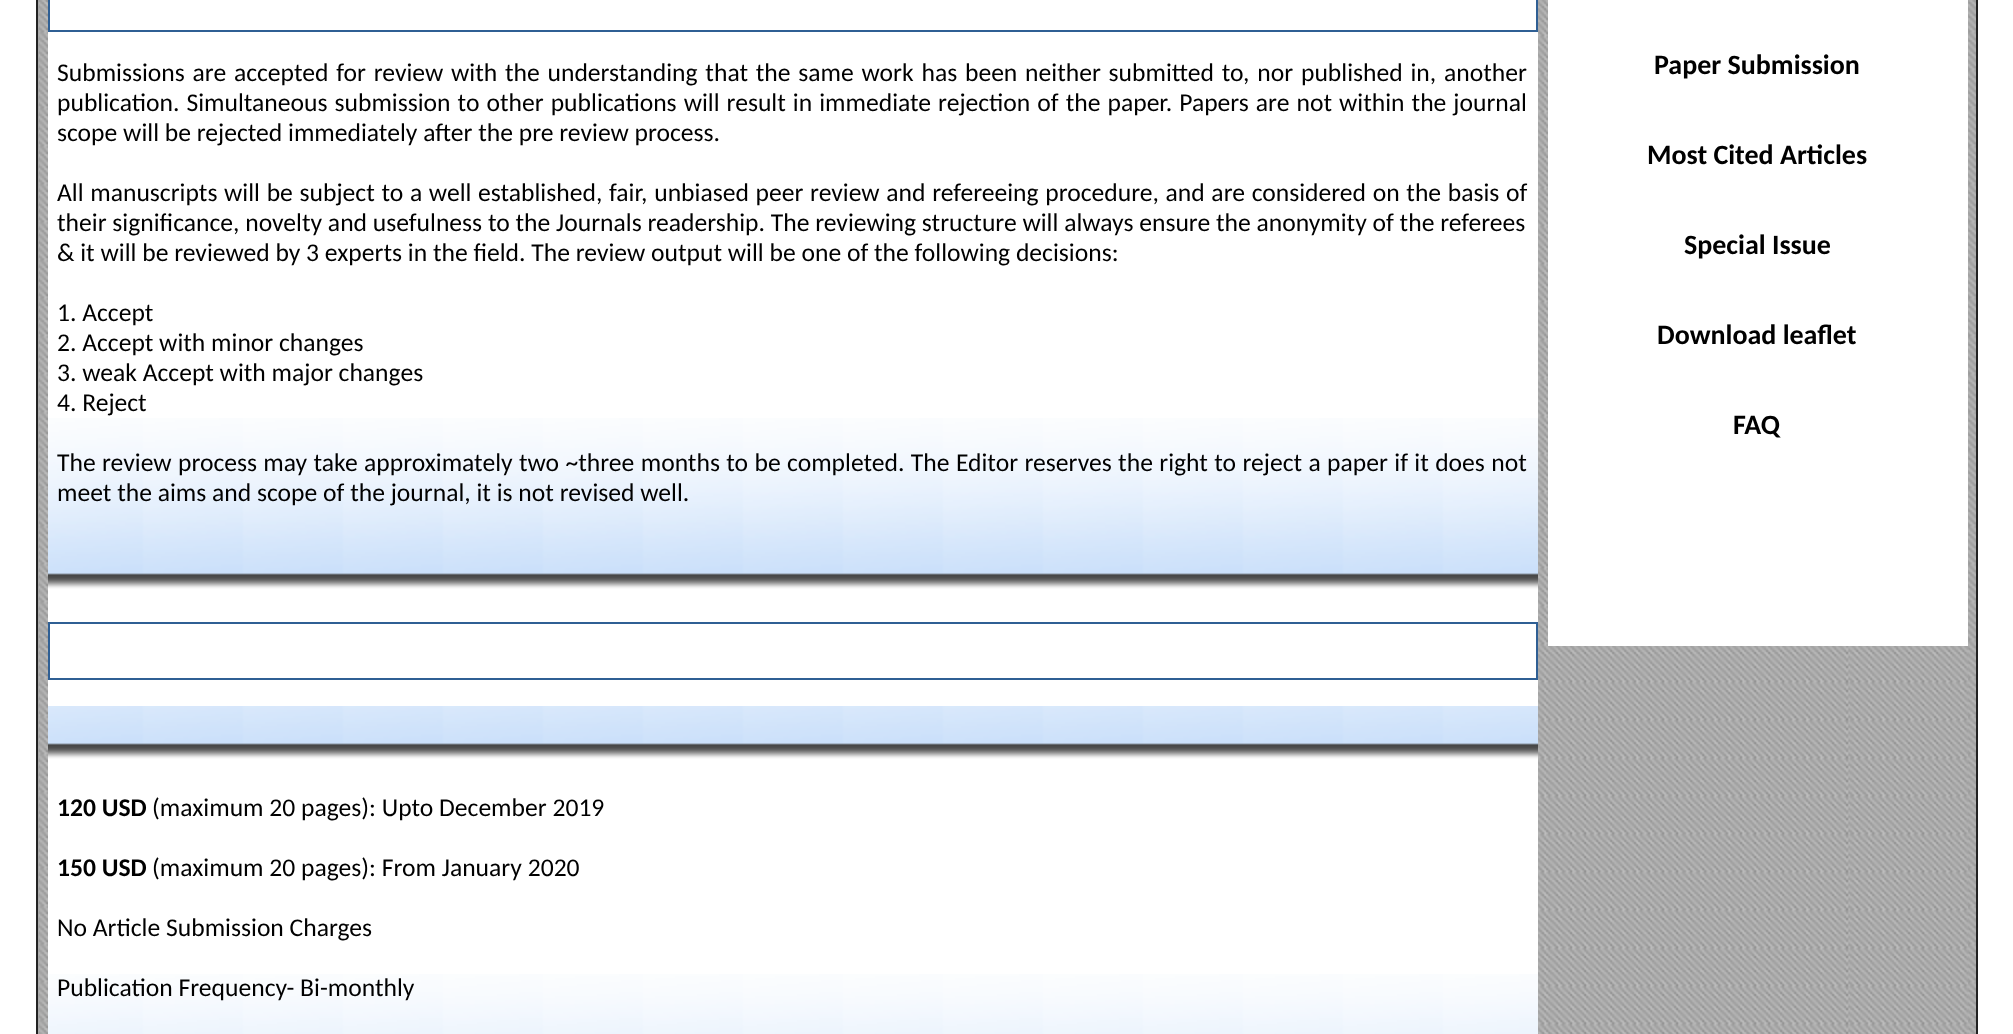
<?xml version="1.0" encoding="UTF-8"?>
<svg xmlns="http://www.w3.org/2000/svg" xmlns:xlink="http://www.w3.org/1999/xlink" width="2013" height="1034">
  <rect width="100%" height="100%" fill="#ffffff" />
  <image x="38" y="0" width="1938" height="1034" xlink:href="image1.png" />
  <rect x="37" y="-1" width="1940" height="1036" fill="none" stroke="#222222" stroke-width="2" />
  <image x="1538" y="0" width="430" height="1034" xlink:href="image2.png" />
  <rect x="48" width="1490" height="974" fill="#ffffff" />
  <rect x="49" y="-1" width="1488" height="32" fill="none" stroke="#2f5f94" stroke-width="2" />
  <image x="48" y="418" width="1490" height="171" xlink:href="image3.png" />
  <rect x="49" y="623" width="1488" height="56" fill="none" stroke="#2f5f94" stroke-width="2" />
  <image x="48" y="706" width="1490" height="53" xlink:href="image4.png" />
  <image x="48" y="974" width="1490" height="60" xlink:href="image5.png" />
  <rect x="1548" width="420" height="646" fill="#ffffff" />
  <text x="57" y="81" word-spacing="2" style="font-family: Carlito; font-size: 25.6px; fill: #000000">Submissions are accepted for review with the understanding that the same work has been neither submitted to, nor published in, another</text>
  <text x="57" y="111" word-spacing="1.25" style="font-family: Carlito; font-size: 25.6px; fill: #000000">publication. Simultaneous submission to other publications will result in immediate rejection of the paper. Papers are not within the journal</text>
  <text x="57" y="141" style="font-family: Carlito; font-size: 25.6px; fill: #000000">scope will be rejected immediately after the pre review process.</text>
  <text x="57" y="201" word-spacing="0.9" style="font-family: Carlito; font-size: 25.6px; fill: #000000">All manuscripts will be subject to a well established, fair, unbiased peer review and refereeing procedure, and are considered on the basis of</text>
  <text x="57" y="231" style="font-family: Carlito; font-size: 25.6px; fill: #000000">their significance, novelty and usefulness to the Journals readership. The reviewing structure will always ensure the anonymity of the referees</text>
  <text x="57" y="261" style="font-family: Carlito; font-size: 25.6px; fill: #000000">&amp; it will be reviewed by 3 experts in the field. The review output will be one of the following decisions:</text>
  <text x="57" y="321" style="font-family: Carlito; font-size: 25.6px; fill: #000000">1. Accept</text>
  <text x="57" y="351" style="font-family: Carlito; font-size: 25.6px; fill: #000000">2. Accept with minor changes</text>
  <text x="57" y="381" style="font-family: Carlito; font-size: 25.6px; fill: #000000">3. weak Accept with major changes</text>
  <text x="57" y="411" style="font-family: Carlito; font-size: 25.6px; fill: #000000">4. Reject</text>
  <text x="57" y="471" word-spacing="0.6" style="font-family: Carlito; font-size: 25.6px; fill: #000000">The review process may take approximately two ~three months to be completed. The Editor reserves the right to reject a paper if it does not</text>
  <text x="57" y="501" style="font-family: Carlito; font-size: 25.6px; fill: #000000">meet the aims and scope of the journal, it is not revised well.</text>
  <text x="57" y="816" style="font-family: Carlito; font-size: 25.6px; font-weight: bold; fill: #000000">120 USD</text>
  <text x="152" y="816" style="font-family: Carlito; font-size: 25.6px; fill: #000000">(maximum 20 pages): Upto December 2019</text>
  <text x="57" y="876" style="font-family: Carlito; font-size: 25.6px; font-weight: bold; fill: #000000">150 USD</text>
  <text x="152" y="876" style="font-family: Carlito; font-size: 25.6px; fill: #000000">(maximum 20 pages): From January 2020</text>
  <text x="57" y="936" style="font-family: Carlito; font-size: 25.6px; fill: #000000">No Article Submission Charges</text>
  <text x="57" y="996" style="font-family: Carlito; font-size: 25.6px; fill: #000000">Publication Frequency- Bi-monthly</text>
  <text x="1654" y="74" style="font-family: Carlito; font-size: 28px; font-weight: bold; fill: #000000">Paper Submission</text>
  <text x="1647" y="164" style="font-family: Carlito; font-size: 28px; font-weight: bold; fill: #000000">Most Cited Articles</text>
  <text x="1684" y="254" style="font-family: Carlito; font-size: 28px; font-weight: bold; fill: #000000">Special Issue</text>
  <text x="1657" y="344" style="font-family: Carlito; font-size: 28px; font-weight: bold; fill: #000000">Download leaflet</text>
  <text x="1733" y="434" style="font-family: Carlito; font-size: 28px; font-weight: bold; fill: #000000">FAQ</text>
</svg>
